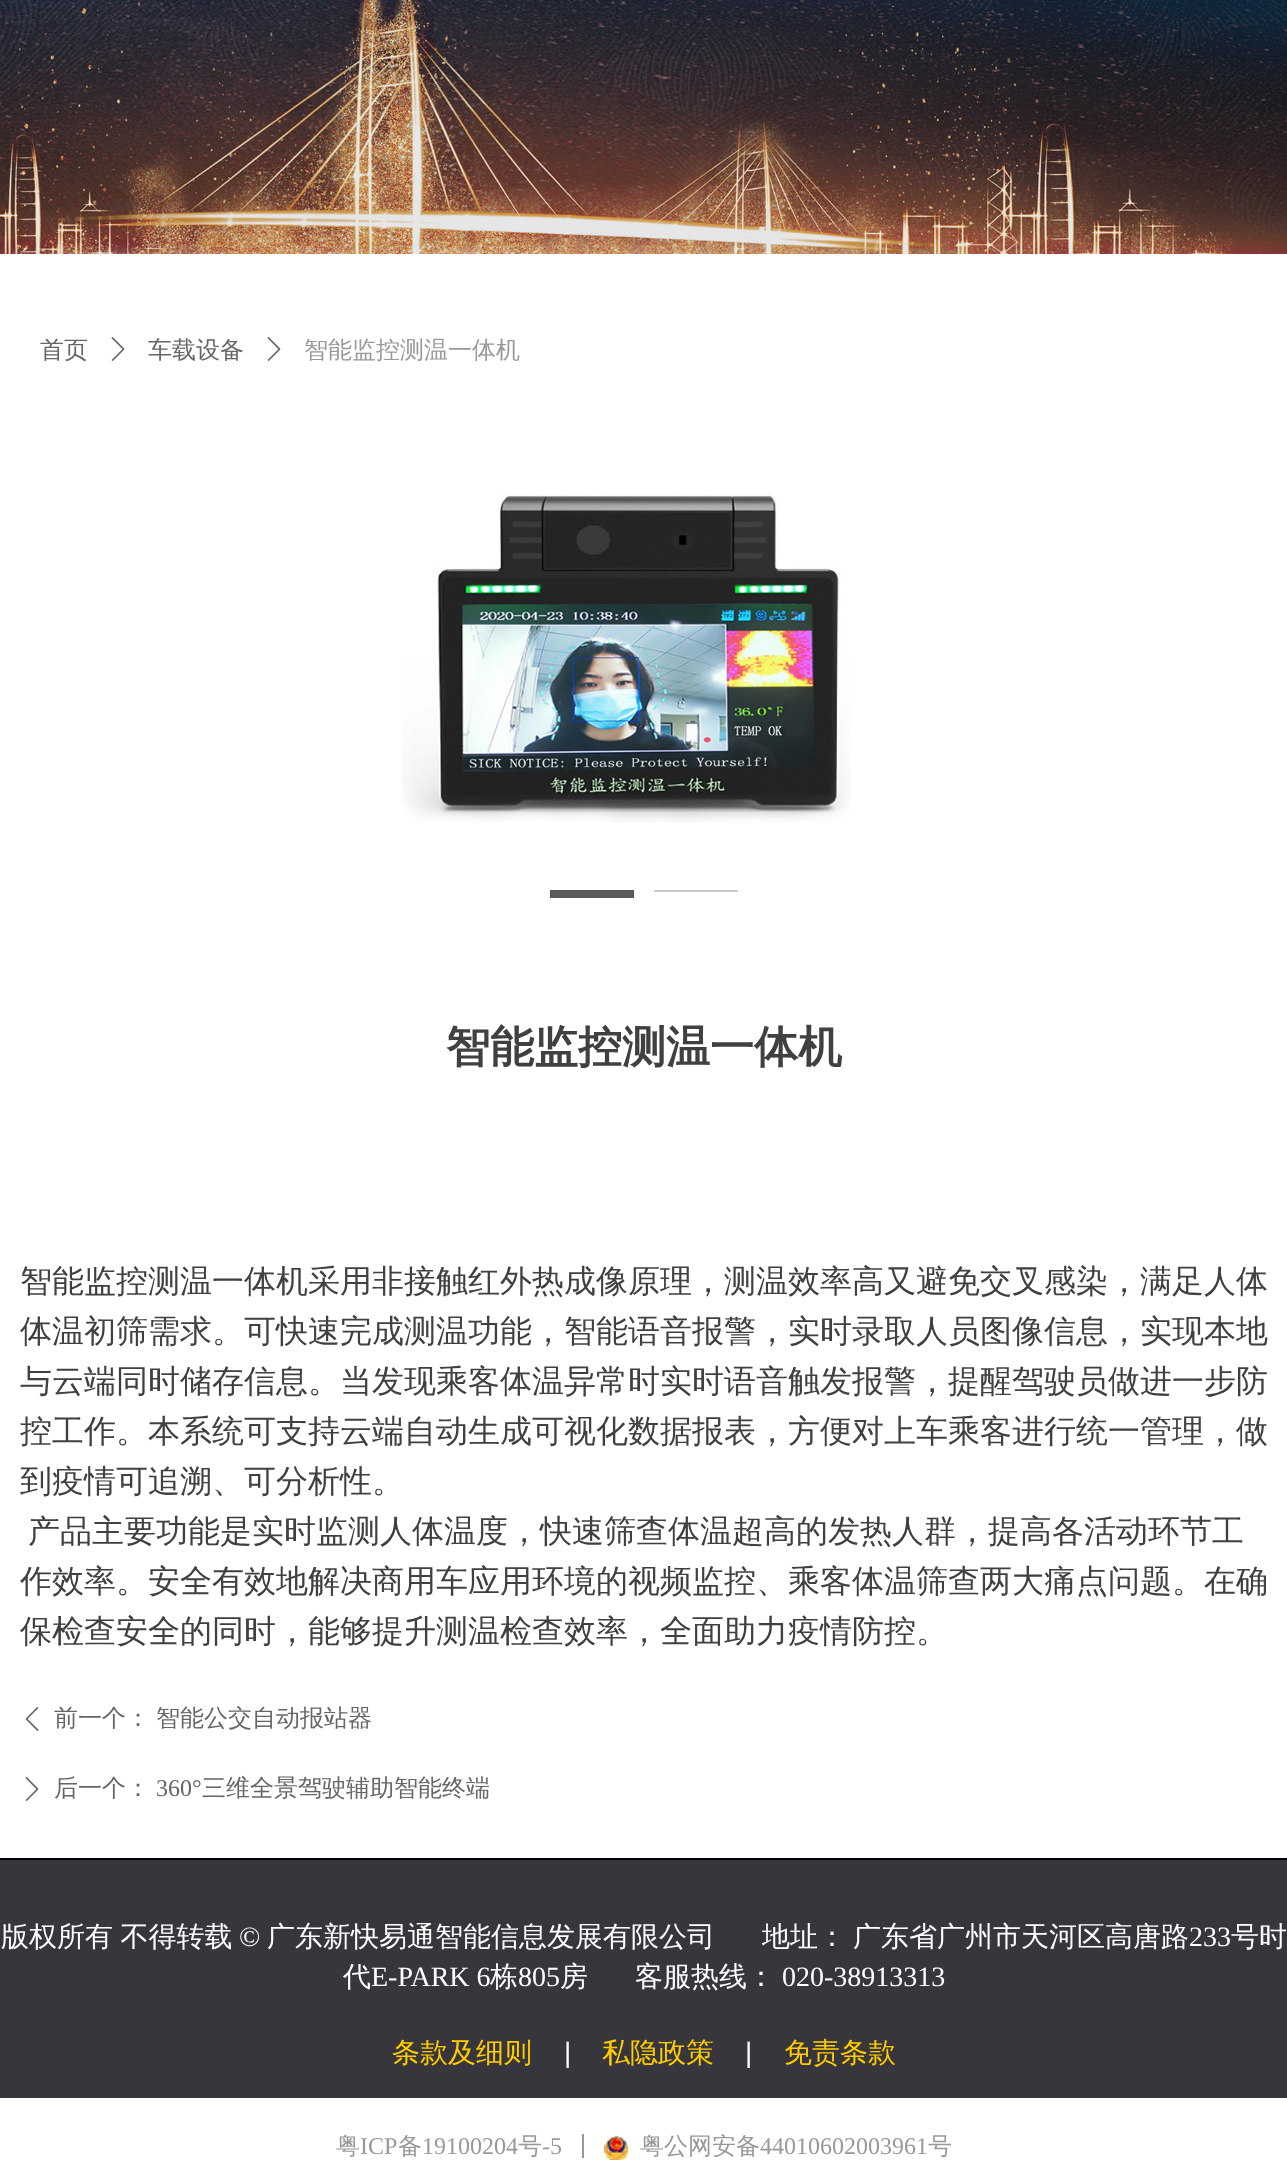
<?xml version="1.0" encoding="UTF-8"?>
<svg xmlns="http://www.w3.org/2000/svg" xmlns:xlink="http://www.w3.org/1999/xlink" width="1287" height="2160">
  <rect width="100%" height="100%" fill="#ffffff" />
  <image x="0" y="0" width="1287" height="254" xlink:href="image1.png" />
  <image x="111" y="337" width="14" height="24" xlink:href="image2.png" />
  <image x="267" y="337" width="14" height="24" xlink:href="image2.png" />
  <image x="401" y="493" width="450" height="330" xlink:href="image3.png" />
  <rect x="550" y="890" width="84" height="8" fill="#5a5a5a" />
  <rect x="654" y="890" width="84" height="2" fill="#c8c8c8" />
  <image x="25" y="1707" width="14" height="24" xlink:href="image4.png" />
  <image x="25" y="1777" width="14" height="24" xlink:href="image2.png" />
  <rect y="1860" width="1287" height="238" fill="#37363c" />
  <rect y="1858" width="1287" height="2" fill="#000000" />
  <rect x="582" y="2134" width="2" height="24" fill="#989898" />
  <image x="604" y="2136" width="24" height="24" xlink:href="image5.png" />
  <text x="40" y="358" style="font-family: WenQuanYi Zen Hei; font-size: 24px; font-weight: 500; fill: #666666">首页</text>
  <text x="148" y="358" style="font-family: WenQuanYi Zen Hei; font-size: 24px; font-weight: 500; fill: #666666">车载设备</text>
  <text x="304" y="358" style="font-family: WenQuanYi Zen Hei; font-size: 24px; font-weight: 500; fill: #999999">智能监控测温一体机</text>
  <text x="446" y="1062" style="font-family: WenQuanYi Zen Hei; font-size: 44px; font-weight: bold; fill: #404040">智能监控测温一体机</text>
  <text x="20" y="1292" style="font-family: WenQuanYi Zen Hei; font-size: 32px; font-weight: 500; fill: #404040">智能监控测温一体机采用非接触红外热成像原理，测温效率高又避免交叉感染，满足人体</text>
  <text x="20" y="1342" style="font-family: WenQuanYi Zen Hei; font-size: 32px; font-weight: 500; fill: #404040">体温初筛需求。可快速完成测温功能，智能语音报警，实时录取人员图像信息，实现本地</text>
  <text x="20" y="1392" style="font-family: WenQuanYi Zen Hei; font-size: 32px; font-weight: 500; fill: #404040">与云端同时储存信息。当发现乘客体温异常时实时语音触发报警，提醒驾驶员做进一步防</text>
  <text x="20" y="1442" style="font-family: WenQuanYi Zen Hei; font-size: 32px; font-weight: 500; fill: #404040">控工作。本系统可支持云端自动生成可视化数据报表，方便对上车乘客进行统一管理，做</text>
  <text x="20" y="1492" style="font-family: WenQuanYi Zen Hei; font-size: 32px; font-weight: 500; fill: #404040">到疫情可追溯、可分析性。</text>
  <text x="28" y="1542" style="font-family: WenQuanYi Zen Hei; font-size: 32px; font-weight: 500; fill: #404040">产品主要功能是实时监测人体温度，快速筛查体温超高的发热人群，提高各活动环节工</text>
  <text x="20" y="1592" style="font-family: WenQuanYi Zen Hei; font-size: 32px; font-weight: 500; fill: #404040">作效率。安全有效地解决商用车应用环境的视频监控、乘客体温筛查两大痛点问题。在确</text>
  <text x="20" y="1642" style="font-family: WenQuanYi Zen Hei; font-size: 32px; font-weight: 500; fill: #404040">保检查安全的同时，能够提升测温检查效率，全面助力疫情防控。</text>
  <text x="54" y="1726" style="font-family: WenQuanYi Zen Hei; font-size: 24px; font-weight: 500; fill: #666666">前一个：</text>
  <text x="156" y="1726" style="font-family: WenQuanYi Zen Hei; font-size: 24px; font-weight: 500; fill: #666666">智能公交自动报站器</text>
  <text x="54" y="1796" style="font-family: WenQuanYi Zen Hei; font-size: 24px; font-weight: 500; fill: #666666">后一个：</text>
  <text x="156" y="1796" style="font-family: Liberation Serif; font-size: 24px; fill: #666666">360°</text>
  <text x="202" y="1796" style="font-family: WenQuanYi Zen Hei; font-size: 24px; font-weight: 500; fill: #666666">三维全景驾驶辅助智能终端</text>
  <text x="1" y="1946" word-spacing="-1" style="font-family: WenQuanYi Zen Hei; font-size: 28px; font-weight: 500; fill: #ffffff">版权所有 不得转载</text>
  <text x="239" y="1946" style="font-family: Liberation Serif; font-size: 28px; fill: #ffffff">©</text>
  <text x="267" y="1946" style="font-family: WenQuanYi Zen Hei; font-size: 28px; font-weight: 500; fill: #ffffff">广东新快易通智能信息发展有限公司</text>
  <text x="762" y="1946" style="font-family: WenQuanYi Zen Hei; font-size: 28px; font-weight: 500; fill: #ffffff">地址：</text>
  <text x="853" y="1946" style="font-family: WenQuanYi Zen Hei; font-size: 28px; font-weight: 500; fill: #ffffff">广东省广州市天河区高唐路</text>
  <text x="1189" y="1946" style="font-family: Liberation Serif; font-size: 28px; fill: #ffffff">233</text>
  <text x="1231" y="1946" style="font-family: WenQuanYi Zen Hei; font-size: 28px; font-weight: 500; fill: #ffffff">号时</text>
  <text x="343" y="1986" style="font-family: WenQuanYi Zen Hei; font-size: 28px; font-weight: 500; fill: #ffffff">代</text>
  <text x="371" y="1986" style="font-family: Liberation Serif; font-size: 28px; fill: #ffffff">E-PARK 6</text>
  <text x="490" y="1986" style="font-family: WenQuanYi Zen Hei; font-size: 28px; font-weight: 500; fill: #ffffff">栋</text>
  <text x="518" y="1986" style="font-family: Liberation Serif; font-size: 28px; fill: #ffffff">805</text>
  <text x="560" y="1986" style="font-family: WenQuanYi Zen Hei; font-size: 28px; font-weight: 500; fill: #ffffff">房</text>
  <text x="635" y="1986" style="font-family: WenQuanYi Zen Hei; font-size: 28px; font-weight: 500; fill: #ffffff">客服热线：</text>
  <text x="782" y="1986" style="font-family: Liberation Serif; font-size: 28px; fill: #ffffff">020-38913313</text>
  <text x="392" y="2062" style="font-family: WenQuanYi Zen Hei; font-size: 28px; font-weight: 500; fill: #ffcc00">条款及细则</text>
  <text x="564" y="2062" style="font-family: Liberation Sans; font-size: 28px; fill: #ffffff">|</text>
  <text x="602" y="2062" style="font-family: WenQuanYi Zen Hei; font-size: 28px; font-weight: 500; fill: #ffcc00">私隐政策</text>
  <text x="745" y="2062" style="font-family: Liberation Sans; font-size: 28px; fill: #ffffff">|</text>
  <text x="784" y="2062" style="font-family: WenQuanYi Zen Hei; font-size: 28px; font-weight: 500; fill: #ffcc00">免责条款</text>
  <text x="336" y="2154" style="font-family: WenQuanYi Zen Hei; font-size: 24px; font-weight: 500; fill: #999999">粤</text>
  <text x="360" y="2154" style="font-family: Liberation Serif; font-size: 24px; fill: #999999">ICP</text>
  <text x="398" y="2154" style="font-family: WenQuanYi Zen Hei; font-size: 24px; font-weight: 500; fill: #999999">备</text>
  <text x="422" y="2154" style="font-family: Liberation Serif; font-size: 24px; fill: #999999">19100204</text>
  <text x="518" y="2154" style="font-family: WenQuanYi Zen Hei; font-size: 24px; font-weight: 500; fill: #999999">号</text>
  <text x="542" y="2154" style="font-family: Liberation Serif; font-size: 24px; fill: #999999">-5</text>
  <text x="640" y="2154" style="font-family: WenQuanYi Zen Hei; font-size: 24px; font-weight: 500; fill: #999999">粤公网安备</text>
  <text x="760" y="2154" style="font-family: Liberation Serif; font-size: 24px; fill: #999999">44010602003961</text>
  <text x="928" y="2154" style="font-family: WenQuanYi Zen Hei; font-size: 24px; font-weight: 500; fill: #999999">号</text>
</svg>
